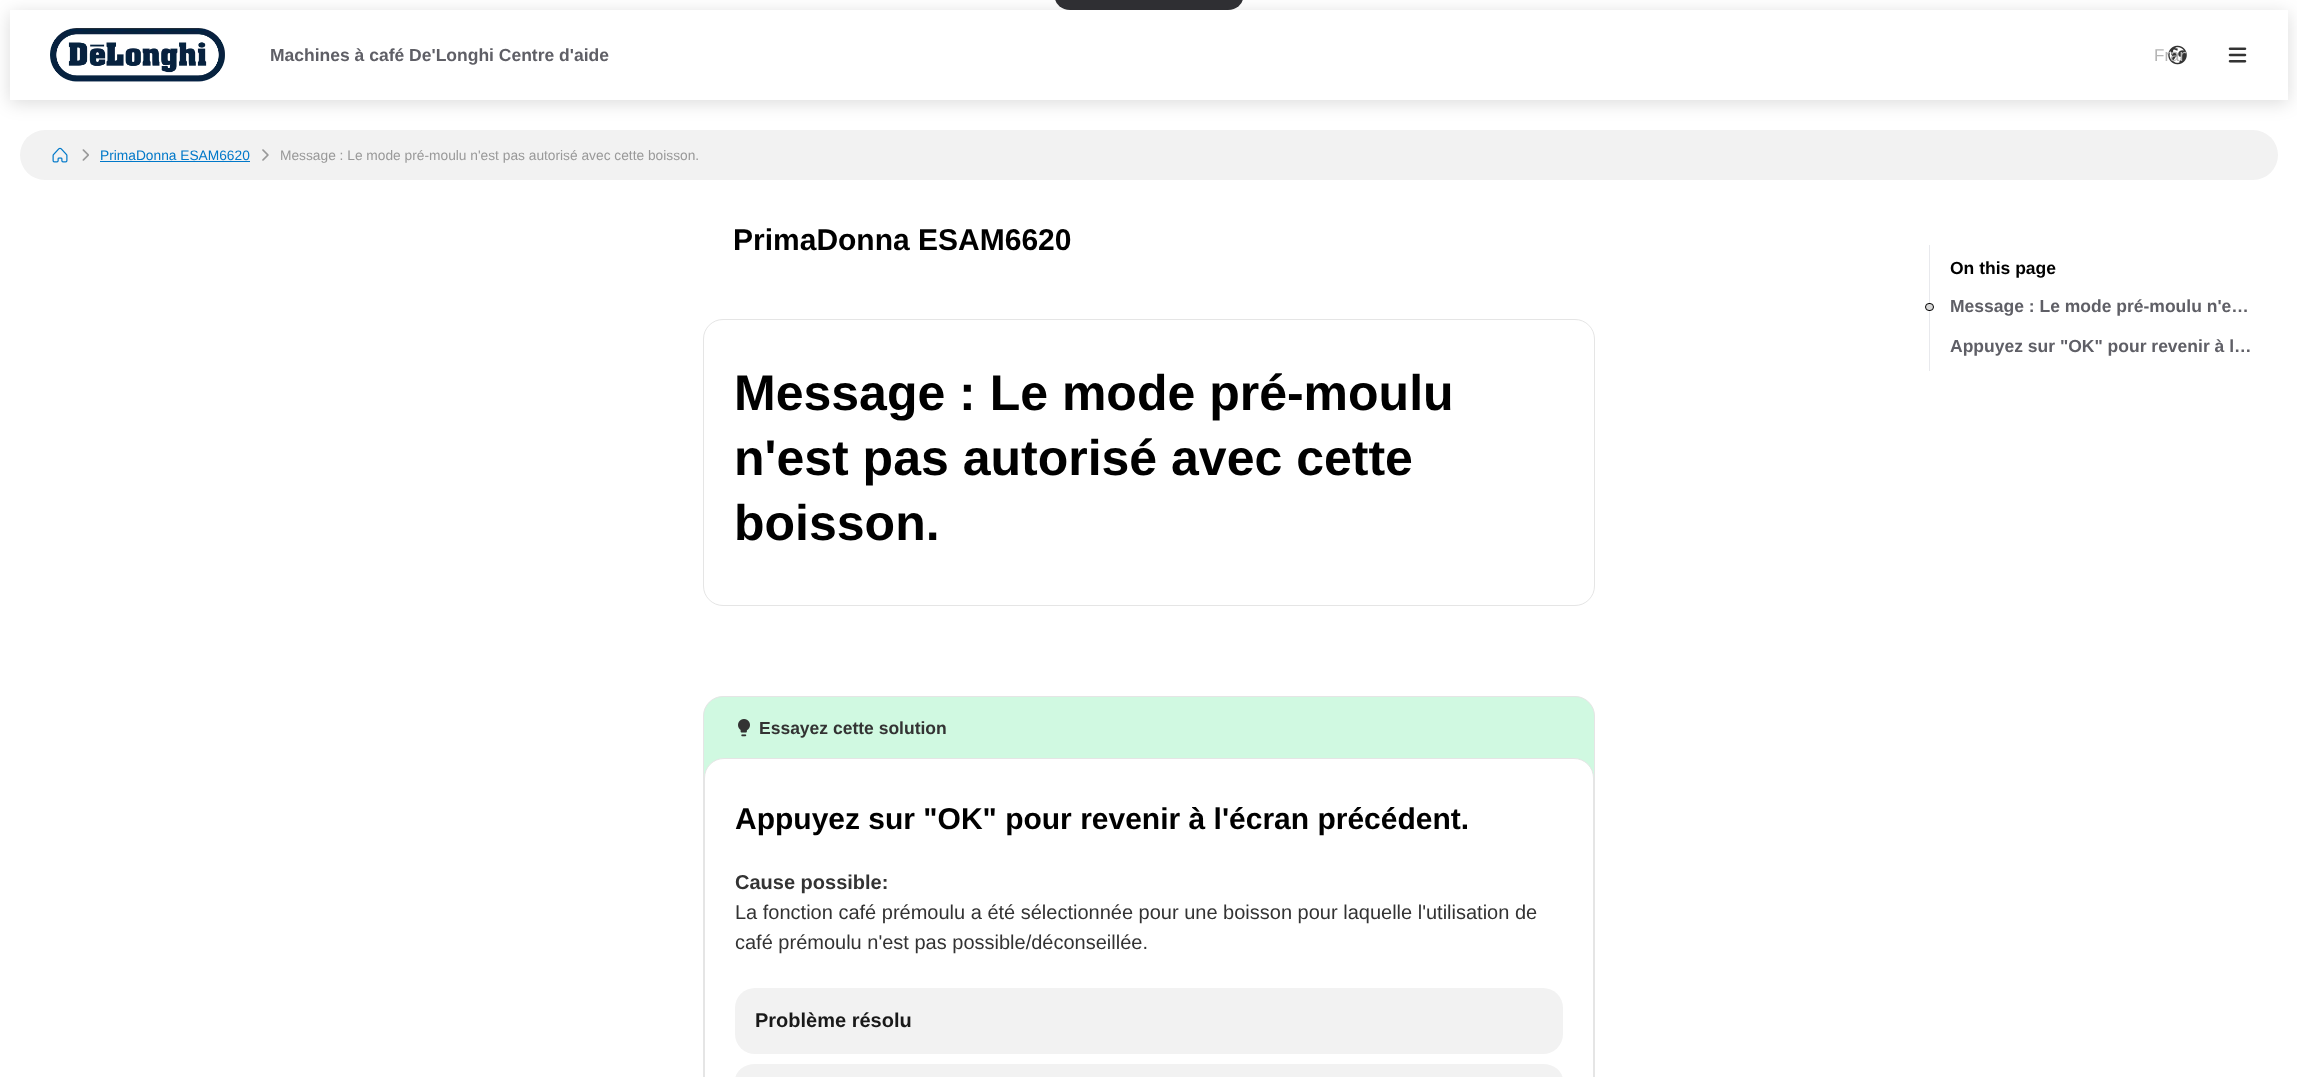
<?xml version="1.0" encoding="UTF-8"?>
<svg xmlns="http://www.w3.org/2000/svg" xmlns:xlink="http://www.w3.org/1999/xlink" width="2297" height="1077">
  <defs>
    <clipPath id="clip1"><rect x="2154" y="45" width="32" height="21" /></clipPath>
  </defs>
  <rect width="100%" height="100%" fill="#ffffff" />
  <rect x="10" y="13" width="2278" height="90" fill="#000000" fill-opacity="0.14" filter="blur(9px)" />
  <rect x="1055" y="-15" width="188" height="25" rx="15" fill="#2f2f33" />
  <rect x="10" y="10" width="2278" height="90" fill="#ffffff" />
  <image x="50" y="28" width="175" height="54" xlink:href="image1.png" />
  <image x="2168" y="45" width="19" height="20" xlink:href="image2.png" />
  <image x="2228" y="47" width="19" height="16" xlink:href="image3.png" />
  <rect x="20" y="130" width="2258" height="50" rx="25" fill="#f2f2f2" />
  <image x="52" y="147" width="16" height="16" xlink:href="image4.png" />
  <image x="82" y="149" width="7" height="12" xlink:href="image5.png" />
  <rect x="100" y="161" width="150" height="1" fill="#0078c9" />
  <image x="262" y="149" width="7" height="12" xlink:href="image6.png" />
  <rect x="703.5" y="319.5" width="891" height="286" rx="19.5" fill="none" stroke="#e5e5e5" />
  <rect x="703.5" y="696.5" width="891" height="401" rx="19.5" fill="#d0f9e1" stroke="#e5e5e5" />
  <image x="738" y="719" width="12" height="18" xlink:href="image7.png" />
  <rect x="704.5" y="758.5" width="889" height="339" rx="19.5" fill="#ffffff" stroke="#e5e5e5" />
  <rect x="735" y="988" width="828" height="66" rx="20" fill="#f2f2f2" />
  <rect x="735" y="1064" width="828" height="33" rx="20" fill="#f2f2f2" />
  <rect x="1929" y="245" width="1" height="126" fill="#e8e9ed" />
  <rect x="1925.5" y="303.5" width="8" height="7" rx="3.5" fill="#d9d9d9" stroke="#000000" />
  <text x="270" y="61" style="font-family: Liberation Sans; font-size: 17.5px; font-weight: bold; fill: #5f5f66">Machines à café De'Longhi Centre d'aide</text>
  <g clip-path="url(#clip1)">
    <text x="2154" y="61" style="font-family: Liberation Sans; font-size: 17px; fill: #b5b5b5">Fran</text>
  </g>
  <text x="100" y="160" style="font-family: Liberation Sans; font-size: 13.75px; fill: #0078c9">PrimaDonna ESAM6620</text>
  <text x="280" y="160" style="font-family: Liberation Sans; font-size: 13.75px; fill: #999999">Message : Le mode pré-moulu n'est pas autorisé avec cette boisson.</text>
  <text x="733" y="250" style="font-family: Liberation Sans; font-size: 30px; font-weight: bold; fill: #000000">PrimaDonna ESAM6620</text>
  <text x="734" y="410" style="font-family: Liberation Sans; font-size: 50px; font-weight: bold; fill: #000000">Message : Le mode pré-moulu</text>
  <text x="734" y="475" style="font-family: Liberation Sans; font-size: 50px; font-weight: bold; fill: #000000">n'est pas autorisé avec cette</text>
  <text x="734" y="540" style="font-family: Liberation Sans; font-size: 50px; font-weight: bold; fill: #000000">boisson.</text>
  <text x="759" y="734" style="font-family: Liberation Sans; font-size: 17.5px; font-weight: bold; fill: #333333">Essayez cette solution</text>
  <text x="735" y="829" style="font-family: Liberation Sans; font-size: 30px; font-weight: bold; fill: #000000">Appuyez sur "OK" pour revenir à l'écran précédent.</text>
  <text x="735" y="889" style="font-family: Liberation Sans; font-size: 20px; font-weight: bold; fill: #333333">Cause possible:</text>
  <text x="735" y="919" style="font-family: Liberation Sans; font-size: 20px; fill: #333333">La fonction café prémoulu a été sélectionnée pour une boisson pour laquelle l'utilisation de</text>
  <text x="735" y="949" style="font-family: Liberation Sans; font-size: 20px; fill: #333333">café prémoulu n'est pas possible/déconseillée.</text>
  <text x="755" y="1027" style="font-family: Liberation Sans; font-size: 20px; font-weight: bold; fill: #191919">Problème résolu</text>
  <text x="1950" y="274" style="font-family: Liberation Sans; font-size: 17.5px; font-weight: bold; fill: #000000">On this page</text>
  <text x="1950" y="312" style="font-family: Liberation Sans; font-size: 17.5px; font-weight: bold; fill: #5f5f66">Message : Le mode pré-moulu n'e…</text>
  <text x="1950" y="352" style="font-family: Liberation Sans; font-size: 17.5px; font-weight: bold; fill: #5f5f66">Appuyez sur "OK" pour revenir à l…</text>
</svg>
